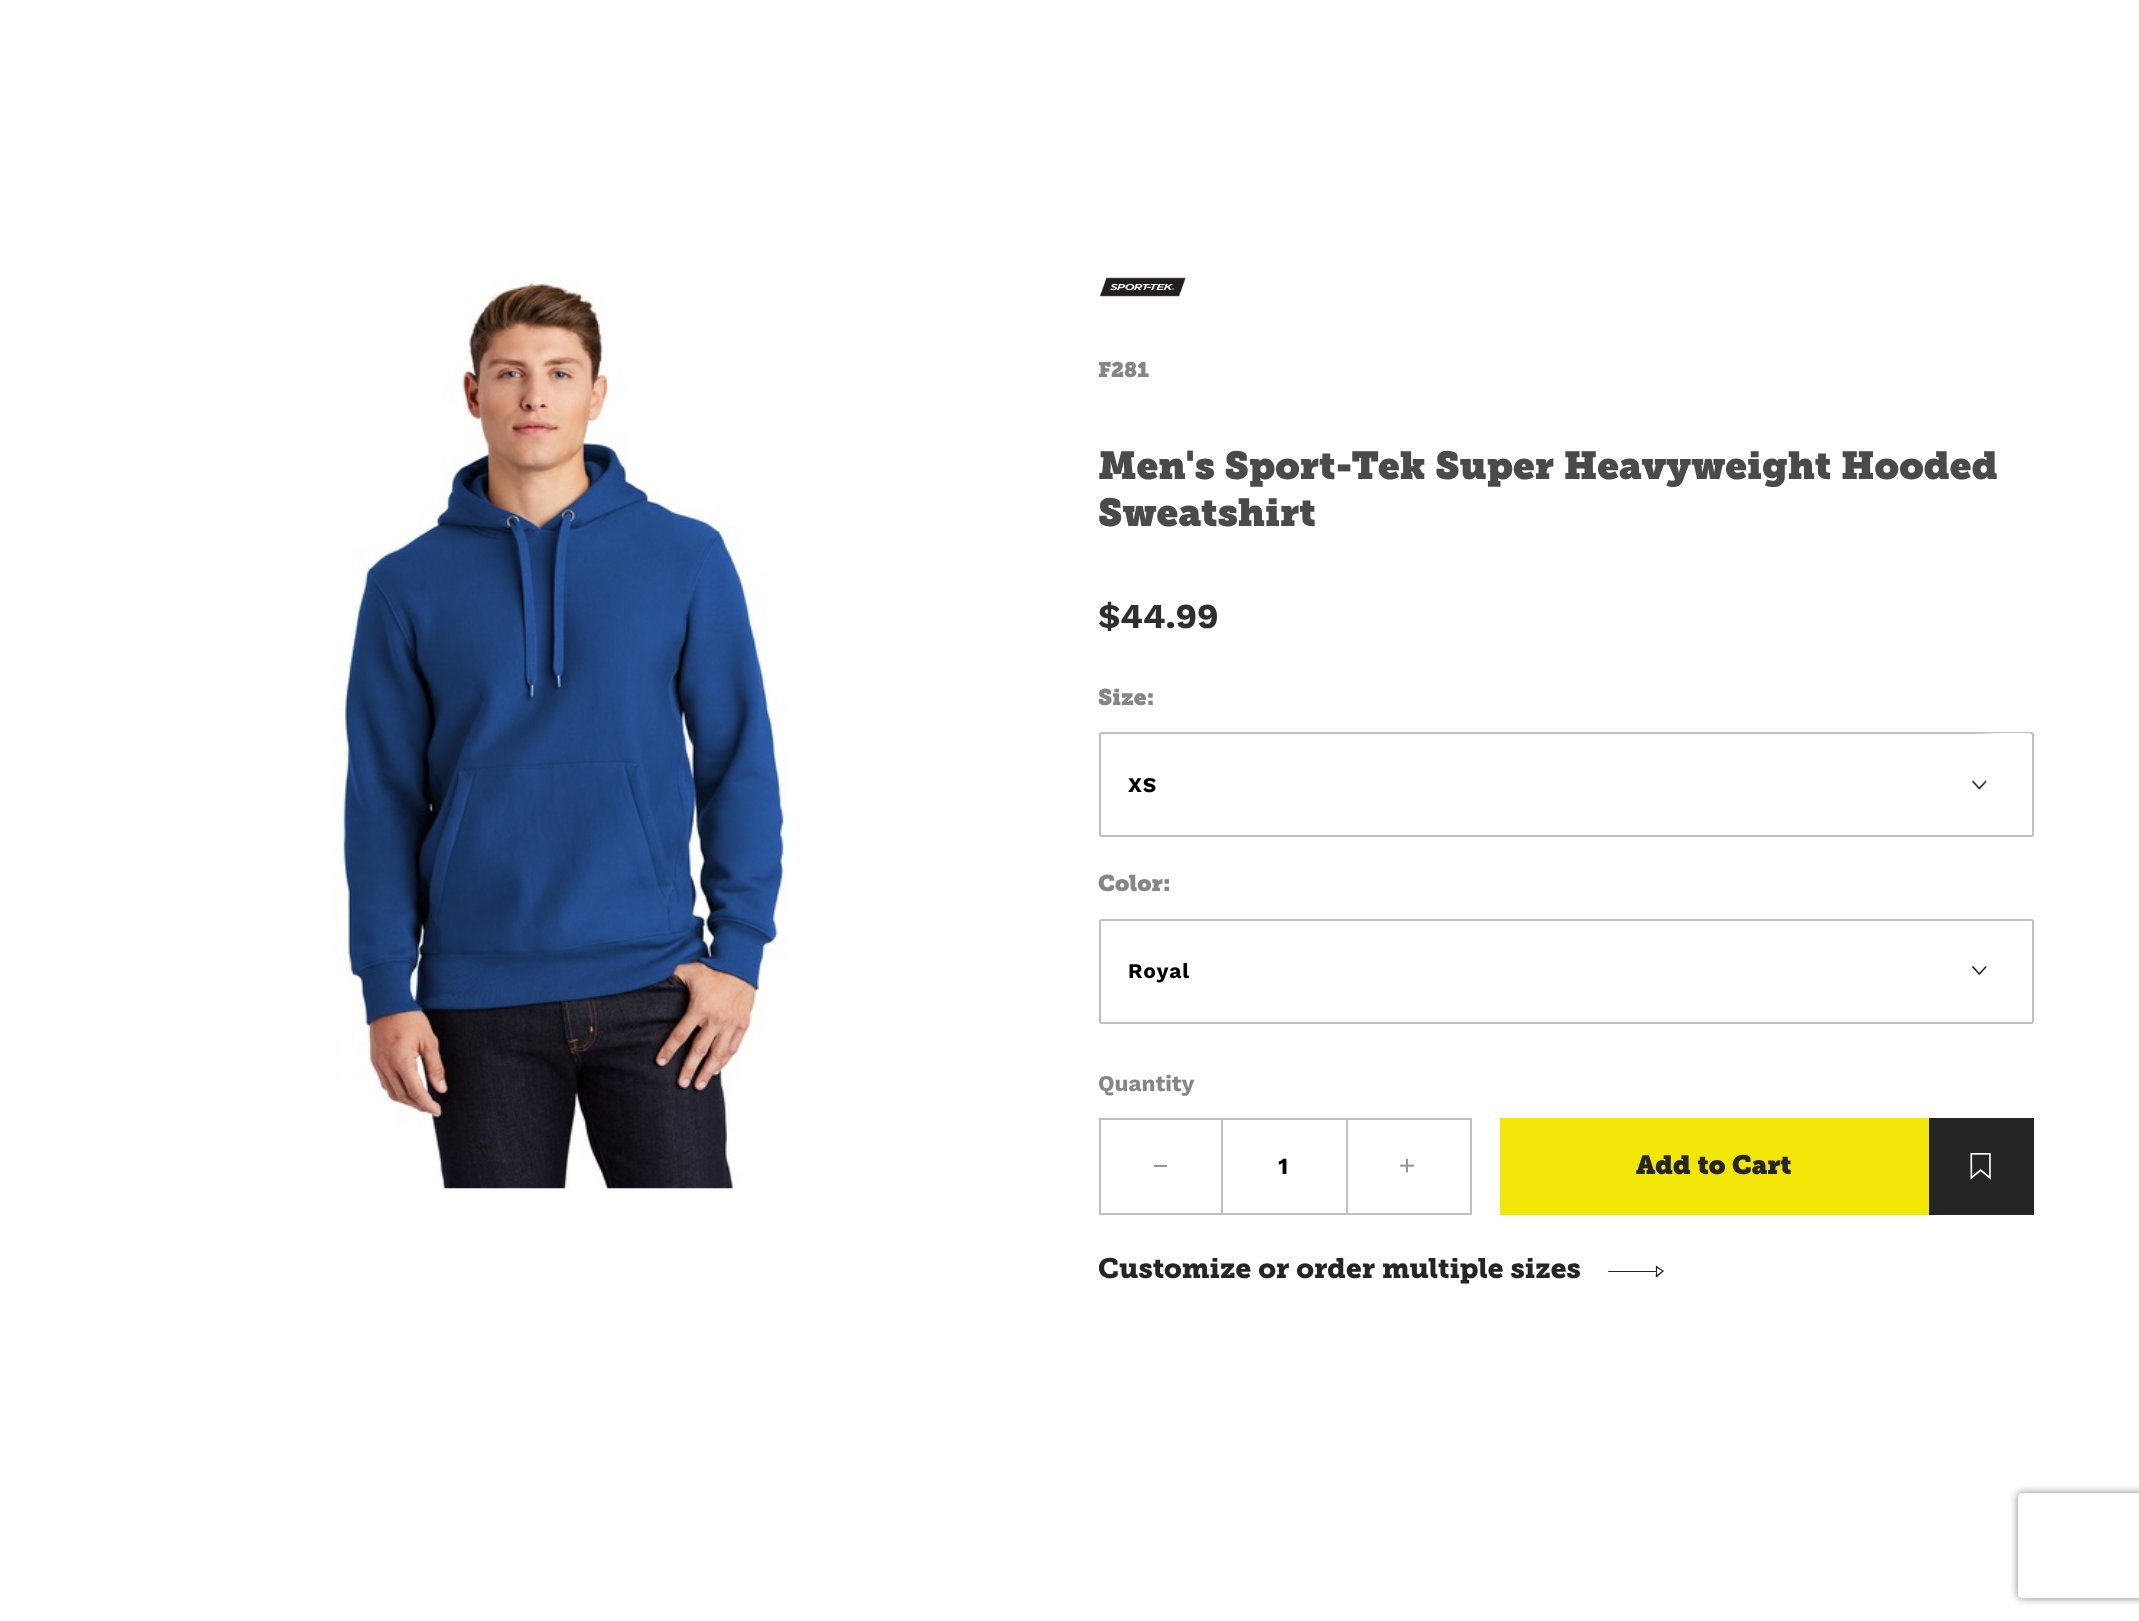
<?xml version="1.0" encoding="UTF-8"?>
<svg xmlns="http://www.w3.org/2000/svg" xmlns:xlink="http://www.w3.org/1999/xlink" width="2139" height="1621">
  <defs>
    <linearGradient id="g1" gradientUnits="userSpaceOnUse" x1="2032" y1="784" x2="1976" y2="784"><stop offset="0.6" stop-color="#ffffff" /><stop offset="1" stop-color="#ffffff" stop-opacity="0" /></linearGradient>
    <clipPath id="clip1"><path d="M 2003 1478 h 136 v 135 h -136 z m 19 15 h 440 c 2 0 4 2 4 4 v 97 c 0 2 -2 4 -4 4 h -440 c -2 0 -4 -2 -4 -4 v -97 c 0 -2 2 -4 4 -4 z" clip-rule="evenodd" /></clipPath>
  </defs>
  <rect width="100%" height="100%" fill="#ffffff" />
  <image x="331" y="279" width="458" height="910" xlink:href="image1.png" />
  <image x="1099" y="277" width="87" height="20" xlink:href="image2.png" />
  <rect x="1100" y="733" width="933" height="103" rx="1.5" fill="none" stroke="#c0c0c0" stroke-width="2" />
  <path d="M 1976 733 h 52 c 2 0 4 2 4 4 v 94 c 0 2 -2 4 -4 4 h -52 z" fill="url(#g1)" />
  <image x="1972" y="780" width="15" height="10" xlink:href="image3.png" />
  <rect x="1100" y="920" width="933" height="103" rx="1.5" fill="none" stroke="#c0c0c0" stroke-width="2" />
  <image x="1972" y="966" width="15" height="9" xlink:href="image4.png" />
  <rect x="1100" y="1119" width="122" height="95" fill="none" stroke="#c0c0c0" stroke-width="2" />
  <rect x="1154" y="1165" width="13" height="2" fill="#959595" />
  <rect x="1223" y="1118" width="249" height="2" fill="#c0c0c0" />
  <rect x="1346" y="1118" width="2" height="97" fill="#c0c0c0" />
  <rect x="1223" y="1213" width="125" height="2" fill="#c0c0c0" />
  <rect x="1470" y="1118" width="2" height="97" fill="#c0c0c0" />
  <rect x="1348" y="1213" width="124" height="2" fill="#c0c0c0" />
  <image x="1400" y="1158" width="14" height="15" xlink:href="image5.png" />
  <rect x="1500" y="1118" width="429" height="97" fill="#f3e709" />
  <rect x="1929" y="1118" width="105" height="97" fill="#252525" />
  <image x="1970" y="1153" width="21" height="27" xlink:href="image6.png" />
  <path d="M 1657 1268 l 5 3 l -5 4 z m -48 4 h 47 c 0 3 -1 6 1 5 l 7 -6 l -6 -4 c -3 -3 -2 0 -2 4 h -47 h -1 c 0 1 1 1 1 1 z" fill="#252525" />
  <g clip-path="url(#clip1)">
    <rect x="2018" y="1493" width="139" height="105" rx="4" fill="#808080" filter="blur(4.5px)" />
  </g>
  <text x="1098" y="377" style="font-family: Museo Slab; font-size: 21px; font-weight: 900; fill: #868686">F281</text>
  <text x="1098" y="479" style="font-family: Museo Slab; font-size: 38.6px; font-weight: 900; fill: #4a4a4a">Men's Sport-Tek Super Heavyweight Hooded</text>
  <text x="1098" y="526" style="font-family: Museo Slab; font-size: 38.6px; font-weight: 900; fill: #4a4a4a">Sweatshirt</text>
  <text x="1098" y="628" style="font-family: Work Sans; font-size: 35px; font-weight: bold; fill: #2e2e2e">$44.99</text>
  <text x="1098" y="705" style="font-family: Museo Slab; font-size: 22.5px; font-weight: 900; fill: #868686">Size:</text>
  <text x="1128" y="792" style="font-family: Work Sans; font-size: 21px; font-weight: bold; letter-spacing: 1px; fill: #000000">XS</text>
  <text x="1098" y="891" style="font-family: Museo Slab; font-size: 22.5px; font-weight: 900; fill: #868686">Color:</text>
  <text x="1128" y="978" style="font-family: Work Sans; font-size: 21px; font-weight: bold; letter-spacing: 1px; fill: #000000">Royal</text>
  <text x="1098" y="1091" style="font-family: Work Sans; font-size: 22.5px; font-weight: bold; fill: #868686">Quantity</text>
  <text x="1278" y="1174" style="font-family: Work Sans; font-size: 23px; font-weight: bold; letter-spacing: 1px; fill: #000000">1</text>
  <text x="1636" y="1174" style="font-family: Museo Slab; font-size: 26.25px; font-weight: 900; fill: #252525">Add to Cart</text>
  <text x="1098" y="1278" style="font-family: Museo Slab; font-size: 28px; font-weight: bold; fill: #252525">Customize or order multiple sizes</text>
</svg>
